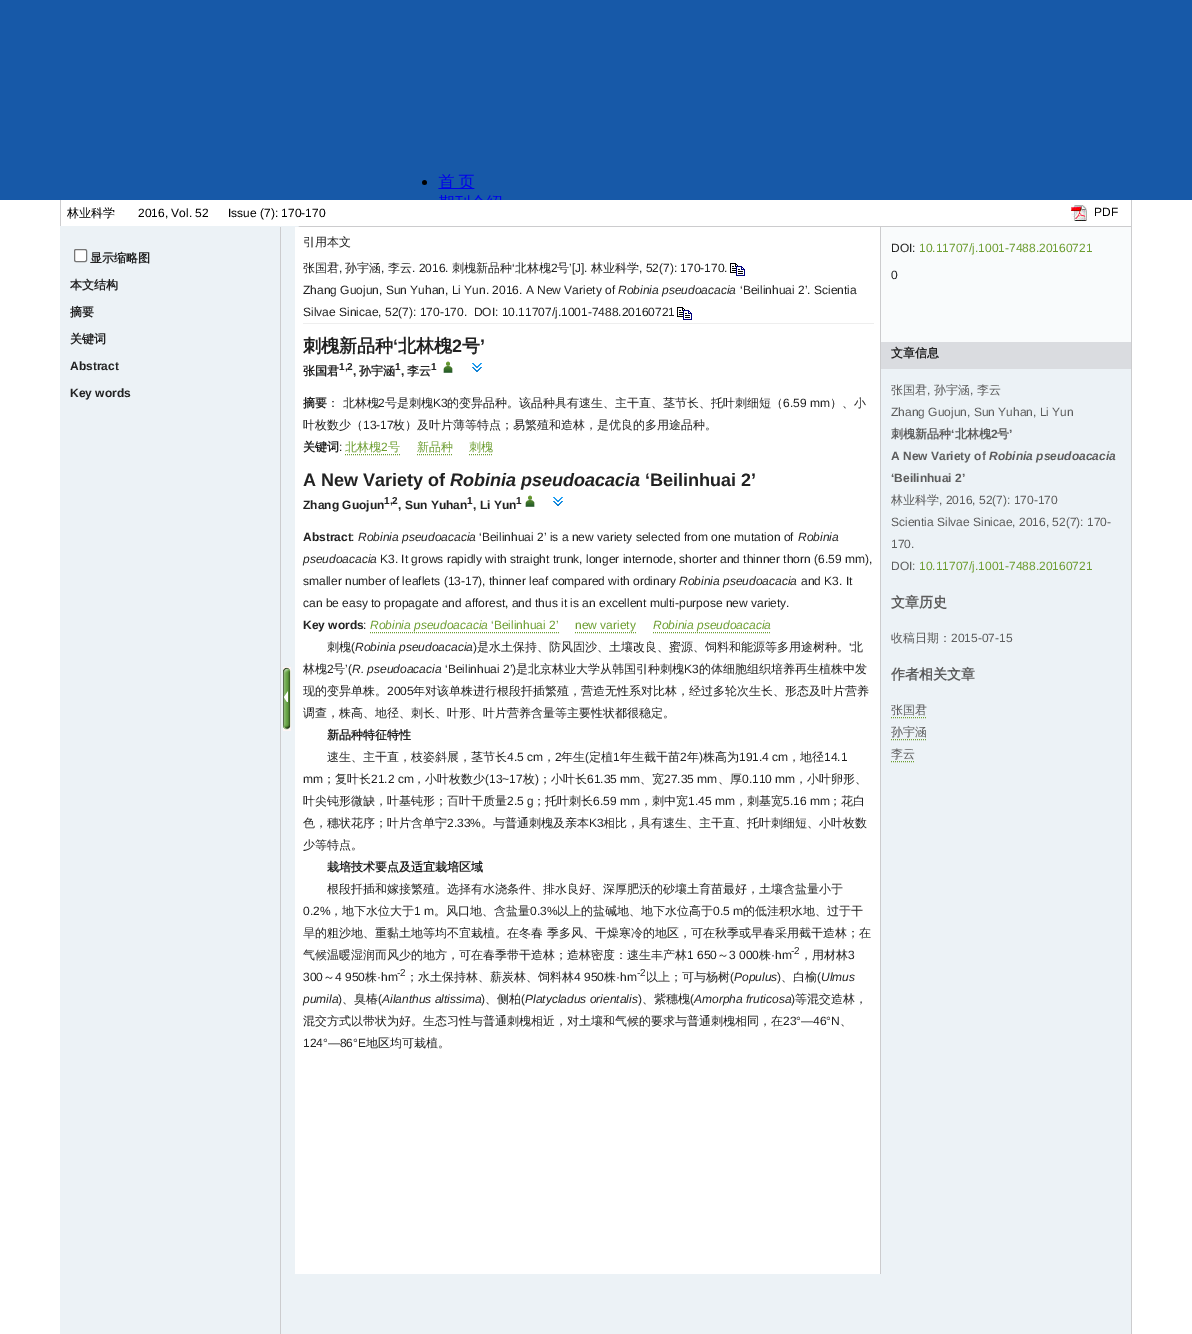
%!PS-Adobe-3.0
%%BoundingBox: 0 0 1192 1334
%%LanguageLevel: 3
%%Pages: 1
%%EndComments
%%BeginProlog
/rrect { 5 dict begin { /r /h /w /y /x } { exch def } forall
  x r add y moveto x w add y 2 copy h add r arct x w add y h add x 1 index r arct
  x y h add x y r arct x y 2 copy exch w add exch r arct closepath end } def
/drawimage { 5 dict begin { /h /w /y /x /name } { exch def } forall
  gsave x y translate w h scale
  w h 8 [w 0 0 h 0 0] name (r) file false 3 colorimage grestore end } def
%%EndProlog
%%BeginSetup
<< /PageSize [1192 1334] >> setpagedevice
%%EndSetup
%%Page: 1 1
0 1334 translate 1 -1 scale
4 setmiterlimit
1 setgray
0 0 1192 1334 rectfill
(images/1.raw) 0 0 1192 200 drawimage
0.8 0.8 0.808 setrgbcolor
60 200 1 27 rectfill
1131 200 1 1134 rectfill
(images/2.raw) 1071 205 16 16 drawimage
297 226 835 1 rectfill
0.925 0.949 0.965 setrgbcolor
60 226 240 1108 3 rrect fill
60 226 2 1108 rectfill
1 setgray
74.5 249.5 12 12 1.5 rrect gsave fill grestore
0.463 setgray
stroke
0.925 0.949 0.965 setrgbcolor
298 227 833 1107 rectfill
0.8 0.8 0.808 setrgbcolor
280 227 1 1107 rectfill
(images/3.raw) 283 667 8 64 drawimage
1 setgray
295 227 585 1047 rectfill
0.8 0.8 0.808 setrgbcolor
880 227 1 1047 rectfill
(images/4.raw) 730 263 15 13 drawimage
(images/4.raw) 677 307 15 13 drawimage
0.933 setgray
303 323 571 1 rectfill
(images/5.raw) 443 361 10 12 drawimage
(images/6.raw) 472 363 10 9 drawimage
0.424 0.616 0.188 setrgbcolor
[1 1] 0 setdash
newpath 345 454.5 moveto 400 454.5 lineto stroke
newpath 417 454.5 moveto 453 454.5 lineto stroke
newpath 469 454.5 moveto 493 454.5 lineto stroke
(images/5.raw) 525 495 10 12 drawimage
(images/6.raw) 553 497 10 9 drawimage
newpath 370 632.5 moveto 488 632.5 lineto stroke
newpath 488 632.5 moveto 559 632.5 lineto stroke
newpath 575 632.5 moveto 636 632.5 lineto stroke
newpath 653 632.5 moveto 771 632.5 lineto stroke
0.976 0.984 0.988 setrgbcolor
881 227 250 115 rectfill
0.855 0.863 0.878 setrgbcolor
881 342 250 27 rectfill
0.424 0.616 0.188 setrgbcolor
newpath 891 717.5 moveto 927 717.5 lineto stroke
newpath 891 739.5 moveto 927 739.5 lineto stroke
newpath 891 761.5 moveto 915 761.5 lineto stroke
/WenQuanYiZenHei-Medium [12 0 0 -12 0 0] selectfont
0 setgray
67 217 moveto (林业科学) show
/LiberationSans-Regular [12 0 0 -12 0 0] selectfont
138 217 moveto (2016, Vol. 52) show
228 217 moveto (Issue \(7\): 170-170) show
1094 216 moveto (PDF) show
/WenQuanYiZenHei-Bold [12 0 0 -12 0 0] selectfont
0.133 setgray
90 262 moveto (显示缩略图) show
70 289 moveto (本文结构) show
70 316 moveto (摘要) show
70 343 moveto (关键词) show
/LiberationSans-Bold [12 0 0 -12 0 0] selectfont
70 370 moveto (Abstract) show
70 397 moveto (Key words) show
/WenQuanYiZenHei-Medium [12 0 0 -12 0 0] selectfont
303 246 moveto (引用本文) show
303 272 moveto (张国君) show
/LiberationSans-Regular [12 0 0 -12 0 0] selectfont
339 272 moveto (,) show
/WenQuanYiZenHei-Medium [12 0 0 -12 0 0] selectfont
345 272 moveto (孙宇涵) show
/LiberationSans-Regular [12 0 0 -12 0 0] selectfont
381 272 moveto (,) show
/WenQuanYiZenHei-Medium [12 0 0 -12 0 0] selectfont
388 272 moveto (李云) show
/LiberationSans-Regular [12 0 0 -12 0 0] selectfont
412 272 moveto (. 2016.) show
/WenQuanYiZenHei-Medium [12 0 0 -12 0 0] selectfont
452 272 moveto (刺槐新品种) show
/LiberationSans-Regular [12 0 0 -12 0 0] selectfont
512 272 moveto (‘) show
/WenQuanYiZenHei-Medium [12 0 0 -12 0 0] selectfont
515 272 moveto (北林槐) show
/LiberationSans-Regular [12 0 0 -12 0 0] selectfont
551 272 moveto (2) show
/WenQuanYiZenHei-Medium [12 0 0 -12 0 0] selectfont
557 272 moveto (号) show
/LiberationSans-Regular [12 0 0 -12 0 0] selectfont
569 272 moveto (’[J].) show
/WenQuanYiZenHei-Medium [12 0 0 -12 0 0] selectfont
591 272 moveto (林业科学) show
/LiberationSans-Regular [12 0 0 -12 0 0] selectfont
639 272 moveto (, 52\(7\): 170-170.) show
303 294 moveto (Zhang Guojun, Sun Yuhan, Li Yun. 2016. A New Variety of) show
/LiberationSans-Italic [12 0 0 -12 0 0] selectfont
618 294 moveto (Robinia pseudoacacia) show
/LiberationSans-Regular [12 0 0 -12 0 0] selectfont
740 294 moveto (‘Beilinhuai 2’. Scientia) show
303 316 moveto (Silvae Sinicae, 52\(7\): 170-170.  DOI: 10.11707/j.1001-7488.20160721) show
/WenQuanYiZenHei-Bold [18 0 0 -18 0 0] selectfont
303 352 moveto (刺槐新品种) show
/LiberationSans-Bold [18 0 0 -18 0 0] selectfont
393 352 moveto (‘) show
/WenQuanYiZenHei-Bold [18 0 0 -18 0 0] selectfont
398 352 moveto (北林槐) show
/LiberationSans-Bold [18 0 0 -18 0 0] selectfont
452 352 moveto (2) show
/WenQuanYiZenHei-Bold [18 0 0 -18 0 0] selectfont
462 352 moveto (号) show
/LiberationSans-Bold [18 0 0 -18 0 0] selectfont
480 352 moveto (’) show
/WenQuanYiZenHei-Bold [12 0 0 -12 0 0] selectfont
303 375 moveto (张国君) show
/LiberationSans-Bold [10 0 0 -10 0 0] selectfont
339 370 moveto (1,2) show
/LiberationSans-Bold [12 0 0 -12 0 0] selectfont
353 375 moveto (,) show
/WenQuanYiZenHei-Bold [12 0 0 -12 0 0] selectfont
359 375 moveto (孙宇涵) show
/LiberationSans-Bold [10 0 0 -10 0 0] selectfont
395 370 moveto (1) show
/LiberationSans-Bold [12 0 0 -12 0 0] selectfont
401 375 moveto (,) show
/WenQuanYiZenHei-Bold [12 0 0 -12 0 0] selectfont
407 375 moveto (李云) show
/LiberationSans-Bold [10 0 0 -10 0 0] selectfont
431 370 moveto (1) show
/WenQuanYiZenHei-Bold [12 0 0 -12 0 0] selectfont
303 407 moveto (摘要) show
/WenQuanYiZenHei-Medium [12 0 0 -12 0 0] selectfont
327 407 moveto (： 北林槐) show
/LiberationSans-Regular [12 0 0 -12 0 0] selectfont
378 407 moveto (2) show
/WenQuanYiZenHei-Medium [12 0 0 -12 0 0] selectfont
385 407 moveto (号是刺槐) show
/LiberationSans-Regular [12 0 0 -12 0 0] selectfont
433 407 moveto (K3) show
/WenQuanYiZenHei-Medium [12 0 0 -12 0 0] selectfont
447 407 moveto (的变异品种。该品种具有速生、主干直、茎节长、托叶刺细短（) show
/LiberationSans-Regular [12 0 0 -12 0 0] selectfont
783 407 moveto (6.59 mm) show
/WenQuanYiZenHei-Medium [12 0 0 -12 0 0] selectfont
830 407 moveto (）、小) show
303 429 moveto (叶枚数少（) show
/LiberationSans-Regular [12 0 0 -12 0 0] selectfont
363 429 moveto (13-17) show
/WenQuanYiZenHei-Medium [12 0 0 -12 0 0] selectfont
393 429 moveto (枚）及叶片薄等特点；易繁殖和造林，是优良的多用途品种。) show
/WenQuanYiZenHei-Bold [12 0 0 -12 0 0] selectfont
303 451 moveto (关键词) show
/LiberationSans-Regular [12 0 0 -12 0 0] selectfont
339 451 moveto (:) show
/WenQuanYiZenHei-Medium [12 0 0 -12 0 0] selectfont
0.424 0.616 0.188 setrgbcolor
345 451 moveto (北林槐) show
/LiberationSans-Regular [12 0 0 -12 0 0] selectfont
381 451 moveto (2) show
/WenQuanYiZenHei-Medium [12 0 0 -12 0 0] selectfont
388 451 moveto (号) show
417 451 moveto (新品种) show
469 451 moveto (刺槐) show
/LiberationSans-Bold [18 0 0 -18 0 0] selectfont
0.133 setgray
303 486 moveto (A New Variety of) show
/LiberationSans-BoldItalic [18 0 0 -18 0 0] selectfont
450 486 moveto (Robinia pseudoacacia) show
/LiberationSans-Bold [18 0 0 -18 0 0] selectfont
645 486 moveto (‘Beilinhuai 2’) show
/LiberationSans-Bold [12 0 0 -12 0 0] selectfont
303 509 moveto (Zhang Guojun) show
/LiberationSans-Bold [10 0 0 -10 0 0] selectfont
384 504 moveto (1,2) show
/LiberationSans-Bold [12 0 0 -12 0 0] selectfont
398 509 moveto (, Sun Yuhan) show
/LiberationSans-Bold [10 0 0 -10 0 0] selectfont
467 504 moveto (1) show
/LiberationSans-Bold [12 0 0 -12 0 0] selectfont
473 509 moveto (, Li Yun) show
/LiberationSans-Bold [10 0 0 -10 0 0] selectfont
516 504 moveto (1) show
/LiberationSans-Bold [12 0 0 -12 0 0] selectfont
303 541 moveto (Abstract) show
/LiberationSans-Regular [12 0 0 -12 0 0] selectfont
351 541 moveto (:) show
/LiberationSans-Italic [12 0 0 -12 0 0] selectfont
358 541 moveto (Robinia pseudoacacia) show
/LiberationSans-Regular [12 0 0 -12 0 0] selectfont
479 541 moveto (‘Beilinhuai 2’ is a new variety selected from one mutation of) show
/LiberationSans-Italic [12 0 0 -12 0 0] selectfont
798 541 moveto (Robinia) show
303 563 moveto (pseudoacacia) show
/LiberationSans-Regular [12 0 0 -12 0 0] selectfont
380 563 moveto (K3. It grows rapidly with straight trunk, longer internode, shorter and thinner thorn \(6.59 mm\),) show
303 585 moveto (smaller number of leaflets \(13-17\), thinner leaf compared with ordinary) show
/LiberationSans-Italic [12 0 0 -12 0 0] selectfont
679 585 moveto (Robinia pseudoacacia) show
/LiberationSans-Regular [12 0 0 -12 0 0] selectfont
801 585 moveto (and K3. It) show
303 607 moveto (can be easy to propagate and afforest, and thus it is an excellent multi-purpose new variety.) show
/LiberationSans-Bold [12 0 0 -12 0 0] selectfont
303 629 moveto (Key words) show
/LiberationSans-Regular [12 0 0 -12 0 0] selectfont
363 629 moveto (:) show
/LiberationSans-Italic [12 0 0 -12 0 0] selectfont
0.424 0.616 0.188 setrgbcolor
370 629 moveto (Robinia pseudoacacia) show
/LiberationSans-Regular [12 0 0 -12 0 0] selectfont
491 629 moveto (‘Beilinhuai 2’) show
575 629 moveto (new variety) show
/LiberationSans-Italic [12 0 0 -12 0 0] selectfont
653 629 moveto (Robinia pseudoacacia) show
/WenQuanYiZenHei-Medium [12 0 0 -12 0 0] selectfont
0.133 setgray
327 651 moveto (刺槐) show
/LiberationSans-Regular [12 0 0 -12 0 0] selectfont
351 651 moveto (\() show
/LiberationSans-Italic [12 0 0 -12 0 0] selectfont
355 651 moveto (Robinia pseudoacacia) show
/LiberationSans-Regular [12 0 0 -12 0 0] selectfont
473 651 moveto (\)) show
/WenQuanYiZenHei-Medium [12 0 0 -12 0 0] selectfont
477 651 moveto (是水土保持、防风固沙、土壤改良、蜜源、饲料和能源等多用途树种。) show
/LiberationSans-Regular [12 0 0 -12 0 0] selectfont
849 651 moveto (‘) show
/WenQuanYiZenHei-Medium [12 0 0 -12 0 0] selectfont
851 651 moveto (北) show
303 673 moveto (林槐) show
/LiberationSans-Regular [12 0 0 -12 0 0] selectfont
327 673 moveto (2) show
/WenQuanYiZenHei-Medium [12 0 0 -12 0 0] selectfont
333 673 moveto (号) show
/LiberationSans-Regular [12 0 0 -12 0 0] selectfont
345 673 moveto (’\() show
/LiberationSans-Italic [12 0 0 -12 0 0] selectfont
352 673 moveto (R. pseudoacacia) show
/LiberationSans-Regular [12 0 0 -12 0 0] selectfont
445 673 moveto (‘Beilinhuai 2’\)) show
/WenQuanYiZenHei-Medium [12 0 0 -12 0 0] selectfont
516 673 moveto (是北京林业大学从韩国引种刺槐) show
/LiberationSans-Regular [12 0 0 -12 0 0] selectfont
684 673 moveto (K3) show
/WenQuanYiZenHei-Medium [12 0 0 -12 0 0] selectfont
699 673 moveto (的体细胞组织培养再生植株中发) show
303 695 moveto (现的变异单株。) show
/LiberationSans-Regular [12 0 0 -12 0 0] selectfont
387 695 moveto (2005) show
/WenQuanYiZenHei-Medium [12 0 0 -12 0 0] selectfont
413 695 moveto (年对该单株进行根段扦插繁殖，营造无性系对比林，经过多轮次生长、形态及叶片营养) show
303 717 moveto (调查，株高、地径、刺长、叶形、叶片营养含量等主要性状都很稳定。) show
/WenQuanYiZenHei-Bold [12 0 0 -12 0 0] selectfont
327 739 moveto (新品种特征特性) show
/WenQuanYiZenHei-Medium [12 0 0 -12 0 0] selectfont
327 761 moveto (速生、主干直，枝姿斜展，茎节长) show
/LiberationSans-Regular [12 0 0 -12 0 0] selectfont
507 761 moveto (4.5 cm) show
/WenQuanYiZenHei-Medium [12 0 0 -12 0 0] selectfont
543 761 moveto (，) show
/LiberationSans-Regular [12 0 0 -12 0 0] selectfont
555 761 moveto (2) show
/WenQuanYiZenHei-Medium [12 0 0 -12 0 0] selectfont
561 761 moveto (年生) show
/LiberationSans-Regular [12 0 0 -12 0 0] selectfont
585 761 moveto (\() show
/WenQuanYiZenHei-Medium [12 0 0 -12 0 0] selectfont
589 761 moveto (定植) show
/LiberationSans-Regular [12 0 0 -12 0 0] selectfont
613 761 moveto (1) show
/WenQuanYiZenHei-Medium [12 0 0 -12 0 0] selectfont
620 761 moveto (年生截干苗) show
/LiberationSans-Regular [12 0 0 -12 0 0] selectfont
680 761 moveto (2) show
/WenQuanYiZenHei-Medium [12 0 0 -12 0 0] selectfont
687 761 moveto (年) show
/LiberationSans-Regular [12 0 0 -12 0 0] selectfont
699 761 moveto (\)) show
/WenQuanYiZenHei-Medium [12 0 0 -12 0 0] selectfont
703 761 moveto (株高为) show
/LiberationSans-Regular [12 0 0 -12 0 0] selectfont
739 761 moveto (191.4 cm) show
/WenQuanYiZenHei-Medium [12 0 0 -12 0 0] selectfont
788 761 moveto (，地径) show
/LiberationSans-Regular [12 0 0 -12 0 0] selectfont
824 761 moveto (14.1) show
303 783 moveto (mm) show
/WenQuanYiZenHei-Medium [12 0 0 -12 0 0] selectfont
323 783 moveto (；复叶长) show
/LiberationSans-Regular [12 0 0 -12 0 0] selectfont
371 783 moveto (21.2 cm) show
/WenQuanYiZenHei-Medium [12 0 0 -12 0 0] selectfont
413 783 moveto (，小叶枚数少) show
/LiberationSans-Regular [12 0 0 -12 0 0] selectfont
485 783 moveto (\(13~17) show
/WenQuanYiZenHei-Medium [12 0 0 -12 0 0] selectfont
523 783 moveto (枚) show
/LiberationSans-Regular [12 0 0 -12 0 0] selectfont
535 783 moveto (\)) show
/WenQuanYiZenHei-Medium [12 0 0 -12 0 0] selectfont
539 783 moveto (；小叶长) show
/LiberationSans-Regular [12 0 0 -12 0 0] selectfont
587 783 moveto (61.35 mm) show
/WenQuanYiZenHei-Medium [12 0 0 -12 0 0] selectfont
640 783 moveto (、宽) show
/LiberationSans-Regular [12 0 0 -12 0 0] selectfont
664 783 moveto (27.35 mm) show
/WenQuanYiZenHei-Medium [12 0 0 -12 0 0] selectfont
718 783 moveto (、厚) show
/LiberationSans-Regular [12 0 0 -12 0 0] selectfont
742 783 moveto (0.110 mm) show
/WenQuanYiZenHei-Medium [12 0 0 -12 0 0] selectfont
795 783 moveto (，小叶卵形、) show
303 805 moveto (叶尖钝形微缺，叶基钝形；百叶干质量) show
/LiberationSans-Regular [12 0 0 -12 0 0] selectfont
507 805 moveto (2.5 g) show
/WenQuanYiZenHei-Medium [12 0 0 -12 0 0] selectfont
533 805 moveto (；托叶刺长) show
/LiberationSans-Regular [12 0 0 -12 0 0] selectfont
593 805 moveto (6.59 mm) show
/WenQuanYiZenHei-Medium [12 0 0 -12 0 0] selectfont
640 805 moveto (，刺中宽) show
/LiberationSans-Regular [12 0 0 -12 0 0] selectfont
688 805 moveto (1.45 mm) show
/WenQuanYiZenHei-Medium [12 0 0 -12 0 0] selectfont
735 805 moveto (，刺基宽) show
/LiberationSans-Regular [12 0 0 -12 0 0] selectfont
783 805 moveto (5.16 mm) show
/WenQuanYiZenHei-Medium [12 0 0 -12 0 0] selectfont
829 805 moveto (；花白) show
303 827 moveto (色，穗状花序；叶片含单宁) show
/LiberationSans-Regular [12 0 0 -12 0 0] selectfont
447 827 moveto (2.33%) show
/WenQuanYiZenHei-Medium [12 0 0 -12 0 0] selectfont
481 827 moveto (。与普通刺槐及亲本) show
/LiberationSans-Regular [12 0 0 -12 0 0] selectfont
589 827 moveto (K3) show
/WenQuanYiZenHei-Medium [12 0 0 -12 0 0] selectfont
603 827 moveto (相比，具有速生、主干直、托叶刺细短、小叶枚数) show
303 849 moveto (少等特点。) show
/WenQuanYiZenHei-Bold [12 0 0 -12 0 0] selectfont
327 871 moveto (栽培技术要点及适宜栽培区域) show
/WenQuanYiZenHei-Medium [12 0 0 -12 0 0] selectfont
327 893 moveto (根段扦插和嫁接繁殖。选择有水浇条件、排水良好、深厚肥沃的砂壤土育苗最好，土壤含盐量小于) show
/LiberationSans-Regular [12 0 0 -12 0 0] selectfont
303 915 moveto (0.2%) show
/WenQuanYiZenHei-Medium [12 0 0 -12 0 0] selectfont
330 915 moveto (，地下水位大于) show
/LiberationSans-Regular [12 0 0 -12 0 0] selectfont
414 915 moveto (1 m) show
/WenQuanYiZenHei-Medium [12 0 0 -12 0 0] selectfont
434 915 moveto (。风口地、含盐量) show
/LiberationSans-Regular [12 0 0 -12 0 0] selectfont
530 915 moveto (0.3%) show
/WenQuanYiZenHei-Medium [12 0 0 -12 0 0] selectfont
557 915 moveto (以上的盐碱地、地下水位高于) show
/LiberationSans-Regular [12 0 0 -12 0 0] selectfont
713 915 moveto (0.5 m) show
/WenQuanYiZenHei-Medium [12 0 0 -12 0 0] selectfont
743 915 moveto (的低洼积水地、过于干) show
303 937 moveto (旱的粗沙地、重黏土地等均不宜栽植。在冬春 季多风、干燥寒冷的地区，可在秋季或早春采用截干造林；在) show
303 959 moveto (气候温暖湿润而风少的地方，可在春季带干造林；造林密度：速生丰产林) show
/LiberationSans-Regular [12 0 0 -12 0 0] selectfont
687 959 moveto (1 650) show
/WenQuanYiZenHei-Medium [12 0 0 -12 0 0] selectfont
717 959 moveto (～) show
/LiberationSans-Regular [12 0 0 -12 0 0] selectfont
729 959 moveto (3 000) show
/WenQuanYiZenHei-Medium [12 0 0 -12 0 0] selectfont
759 959 moveto (株) show
/LiberationSans-Regular [12 0 0 -12 0 0] selectfont
771 959 moveto (·hm) show
/LiberationSans-Regular [10 0 0 -10 0 0] selectfont
791 954 moveto (-2) show
/WenQuanYiZenHei-Medium [12 0 0 -12 0 0] selectfont
800 959 moveto (，用材林) show
/LiberationSans-Regular [12 0 0 -12 0 0] selectfont
848 959 moveto (3) show
303 981 moveto (300) show
/WenQuanYiZenHei-Medium [12 0 0 -12 0 0] selectfont
323 981 moveto (～) show
/LiberationSans-Regular [12 0 0 -12 0 0] selectfont
335 981 moveto (4 950) show
/WenQuanYiZenHei-Medium [12 0 0 -12 0 0] selectfont
365 981 moveto (株) show
/LiberationSans-Regular [12 0 0 -12 0 0] selectfont
377 981 moveto (·hm) show
/LiberationSans-Regular [10 0 0 -10 0 0] selectfont
397 976 moveto (-2) show
/WenQuanYiZenHei-Medium [12 0 0 -12 0 0] selectfont
406 981 moveto (；水土保持林、薪炭林、饲料林) show
/LiberationSans-Regular [12 0 0 -12 0 0] selectfont
574 981 moveto (4 950) show
/WenQuanYiZenHei-Medium [12 0 0 -12 0 0] selectfont
604 981 moveto (株) show
/LiberationSans-Regular [12 0 0 -12 0 0] selectfont
616 981 moveto (·hm) show
/LiberationSans-Regular [10 0 0 -10 0 0] selectfont
637 976 moveto (-2) show
/WenQuanYiZenHei-Medium [12 0 0 -12 0 0] selectfont
646 981 moveto (以上；可与杨树) show
/LiberationSans-Regular [12 0 0 -12 0 0] selectfont
730 981 moveto (\() show
/LiberationSans-Italic [12 0 0 -12 0 0] selectfont
734 981 moveto (Populus) show
/LiberationSans-Regular [12 0 0 -12 0 0] selectfont
777 981 moveto (\)) show
/WenQuanYiZenHei-Medium [12 0 0 -12 0 0] selectfont
781 981 moveto (、白榆) show
/LiberationSans-Regular [12 0 0 -12 0 0] selectfont
817 981 moveto (\() show
/LiberationSans-Italic [12 0 0 -12 0 0] selectfont
821 981 moveto (Ulmus) show
303 1003 moveto (pumila) show
/LiberationSans-Regular [12 0 0 -12 0 0] selectfont
338 1003 moveto (\)) show
/WenQuanYiZenHei-Medium [12 0 0 -12 0 0] selectfont
342 1003 moveto (、臭椿) show
/LiberationSans-Regular [12 0 0 -12 0 0] selectfont
378 1003 moveto (\() show
/LiberationSans-Italic [12 0 0 -12 0 0] selectfont
382 1003 moveto (Ailanthus altissima) show
/LiberationSans-Regular [12 0 0 -12 0 0] selectfont
481 1003 moveto (\)) show
/WenQuanYiZenHei-Medium [12 0 0 -12 0 0] selectfont
485 1003 moveto (、侧柏) show
/LiberationSans-Regular [12 0 0 -12 0 0] selectfont
521 1003 moveto (\() show
/LiberationSans-Italic [12 0 0 -12 0 0] selectfont
525 1003 moveto (Platycladus orientalis) show
/LiberationSans-Regular [12 0 0 -12 0 0] selectfont
638 1003 moveto (\)) show
/WenQuanYiZenHei-Medium [12 0 0 -12 0 0] selectfont
642 1003 moveto (、紫穗槐) show
/LiberationSans-Regular [12 0 0 -12 0 0] selectfont
690 1003 moveto (\() show
/LiberationSans-Italic [12 0 0 -12 0 0] selectfont
694 1003 moveto (Amorpha fruticosa) show
/LiberationSans-Regular [12 0 0 -12 0 0] selectfont
791 1003 moveto (\)) show
/WenQuanYiZenHei-Medium [12 0 0 -12 0 0] selectfont
795 1003 moveto (等混交造林，) show
303 1025 moveto (混交方式以带状为好。生态习性与普通刺槐相近，对土壤和气候的要求与普通刺槐相同，在) show
/LiberationSans-Regular [12 0 0 -12 0 0] selectfont
783 1025 moveto (23°—46°N) show
/WenQuanYiZenHei-Medium [12 0 0 -12 0 0] selectfont
840 1025 moveto (、) show
/LiberationSans-Regular [12 0 0 -12 0 0] selectfont
303 1047 moveto (124°—86°E) show
/WenQuanYiZenHei-Medium [12 0 0 -12 0 0] selectfont
366 1047 moveto (地区均可栽植。) show
/LiberationSans-Regular [12 0 0 -12 0 0] selectfont
891 252 moveto (DOI:) show
0.424 0.616 0.188 setrgbcolor
919 252 moveto (10.11707/j.1001-7488.20160721) show
0.133 setgray
891 279 moveto (0) show
/WenQuanYiZenHei-Bold [12 0 0 -12 0 0] selectfont
891 357 moveto (文章信息) show
/WenQuanYiZenHei-Medium [12 0 0 -12 0 0] selectfont
0.361 setgray
891 394 moveto (张国君) show
/LiberationSans-Regular [12 0 0 -12 0 0] selectfont
927 394 moveto (,) show
/WenQuanYiZenHei-Medium [12 0 0 -12 0 0] selectfont
934 394 moveto (孙宇涵) show
/LiberationSans-Regular [12 0 0 -12 0 0] selectfont
970 394 moveto (,) show
/WenQuanYiZenHei-Medium [12 0 0 -12 0 0] selectfont
977 394 moveto (李云) show
/LiberationSans-Regular [12 0 0 -12 0 0] selectfont
891 416 moveto (Zhang Guojun, Sun Yuhan, Li Yun) show
/WenQuanYiZenHei-Bold [12 0 0 -12 0 0] selectfont
891 438 moveto (刺槐新品种 北林槐) show
997 438 moveto (号) show
/LiberationSans-Bold [12 0 0 -12 0 0] selectfont
951 438 moveto (‘) show
991 438 moveto (2) show
1009 438 moveto (’) show
891 460 moveto (A New Variety of) show
/LiberationSans-BoldItalic [12 0 0 -12 0 0] selectfont
989 460 moveto (Robinia pseudoacacia) show
/LiberationSans-Bold [12 0 0 -12 0 0] selectfont
891 482 moveto (‘Beilinhuai 2’) show
/WenQuanYiZenHei-Medium [12 0 0 -12 0 0] selectfont
891 504 moveto (林业科学) show
/LiberationSans-Regular [12 0 0 -12 0 0] selectfont
939 504 moveto (, 2016, 52\(7\): 170-170) show
891 526 moveto (Scientia Silvae Sinicae, 2016, 52\(7\): 170-) show
891 548 moveto (170.) show
891 570 moveto (DOI:) show
0.424 0.616 0.188 setrgbcolor
919 570 moveto (10.11707/j.1001-7488.20160721) show
/WenQuanYiZenHei-Bold [14 0 0 -14 0 0] selectfont
0.361 setgray
891 607 moveto (文章历史) show
/WenQuanYiZenHei-Medium [12 0 0 -12 0 0] selectfont
891 642 moveto (收稿日期：) show
/LiberationSans-Regular [12 0 0 -12 0 0] selectfont
951 642 moveto (2015-07-15) show
/WenQuanYiZenHei-Bold [14 0 0 -14 0 0] selectfont
891 679 moveto (作者相关文章) show
/WenQuanYiZenHei-Medium [12 0 0 -12 0 0] selectfont
891 714 moveto (张国君) show
891 736 moveto (孙宇涵) show
891 758 moveto (李云) show
showpage
%%EOF
